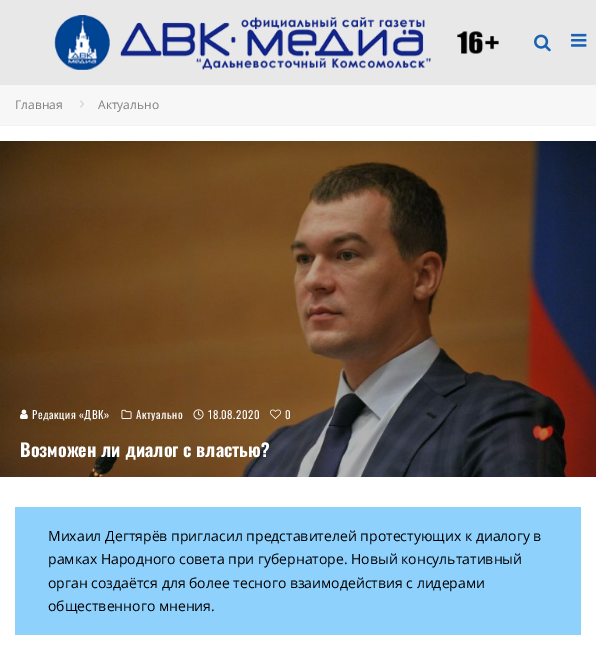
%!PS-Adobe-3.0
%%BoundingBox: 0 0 596 661
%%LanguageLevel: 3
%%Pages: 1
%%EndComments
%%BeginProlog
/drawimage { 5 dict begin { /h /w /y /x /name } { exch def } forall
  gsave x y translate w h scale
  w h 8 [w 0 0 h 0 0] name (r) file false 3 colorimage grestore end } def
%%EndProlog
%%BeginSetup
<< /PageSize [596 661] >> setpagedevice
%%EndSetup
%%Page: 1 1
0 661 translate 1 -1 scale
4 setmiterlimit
1 setgray
0 0 596 661 rectfill
0.91 setgray
0 0 596 85 rectfill
(images/1.raw) 54 15 445 55 drawimage
(images/2.raw) 534 34 17 18 drawimage
(images/3.raw) 571 33 16 14 drawimage
0.969 setgray
0 85 596 40 rectfill
0.953 setgray
0 125 596 1 rectfill
(images/4.raw) 80 100 4 8 drawimage
(images/5.raw) 0 141 596 336 drawimage
(images/6.raw) 20 409 8 10 drawimage
(images/7.raw) 121 409 11 10 drawimage
(images/8.raw) 193 409 11 11 drawimage
(images/9.raw) 270 409 11 10 drawimage
0.557 0.82 0.988 setrgbcolor
15 507 566 128 rectfill
/OpenSans-Regular [12 0 0 -12 0 0] selectfont
0.502 setgray
15 109 moveto (Главная) show
98 109 moveto (Актуально) show
/Oswald-Regular [11 0 0 -11 0 0] selectfont
1 setgray
32 419 moveto 0.5 0 (Редакция «ДВК») ashow
136 419 moveto 0.5 0 (Актуально) ashow
208 419 moveto 0.5 0 (18.08.2020) ashow
285 419 moveto 0.5 0 (0) ashow
/Oswald-Bold [18 0 0 -18 0 0] selectfont
20 457 moveto (Возможен ли диалог с властью?) show
/OpenSans-Regular [14 0 0 -14 0 0] selectfont
0 setgray
48 541 moveto (Михаил Дегтярёв пригласил представителей протестующих к диалогу в) show
48 564 moveto (рамках Народного совета при губернаторе. Новый консультативный) show
48 588 moveto (орган создаётся для более тесного взаимодействия с лидерами) show
48 611 moveto (общественного мнения.) show
showpage
%%EOF
